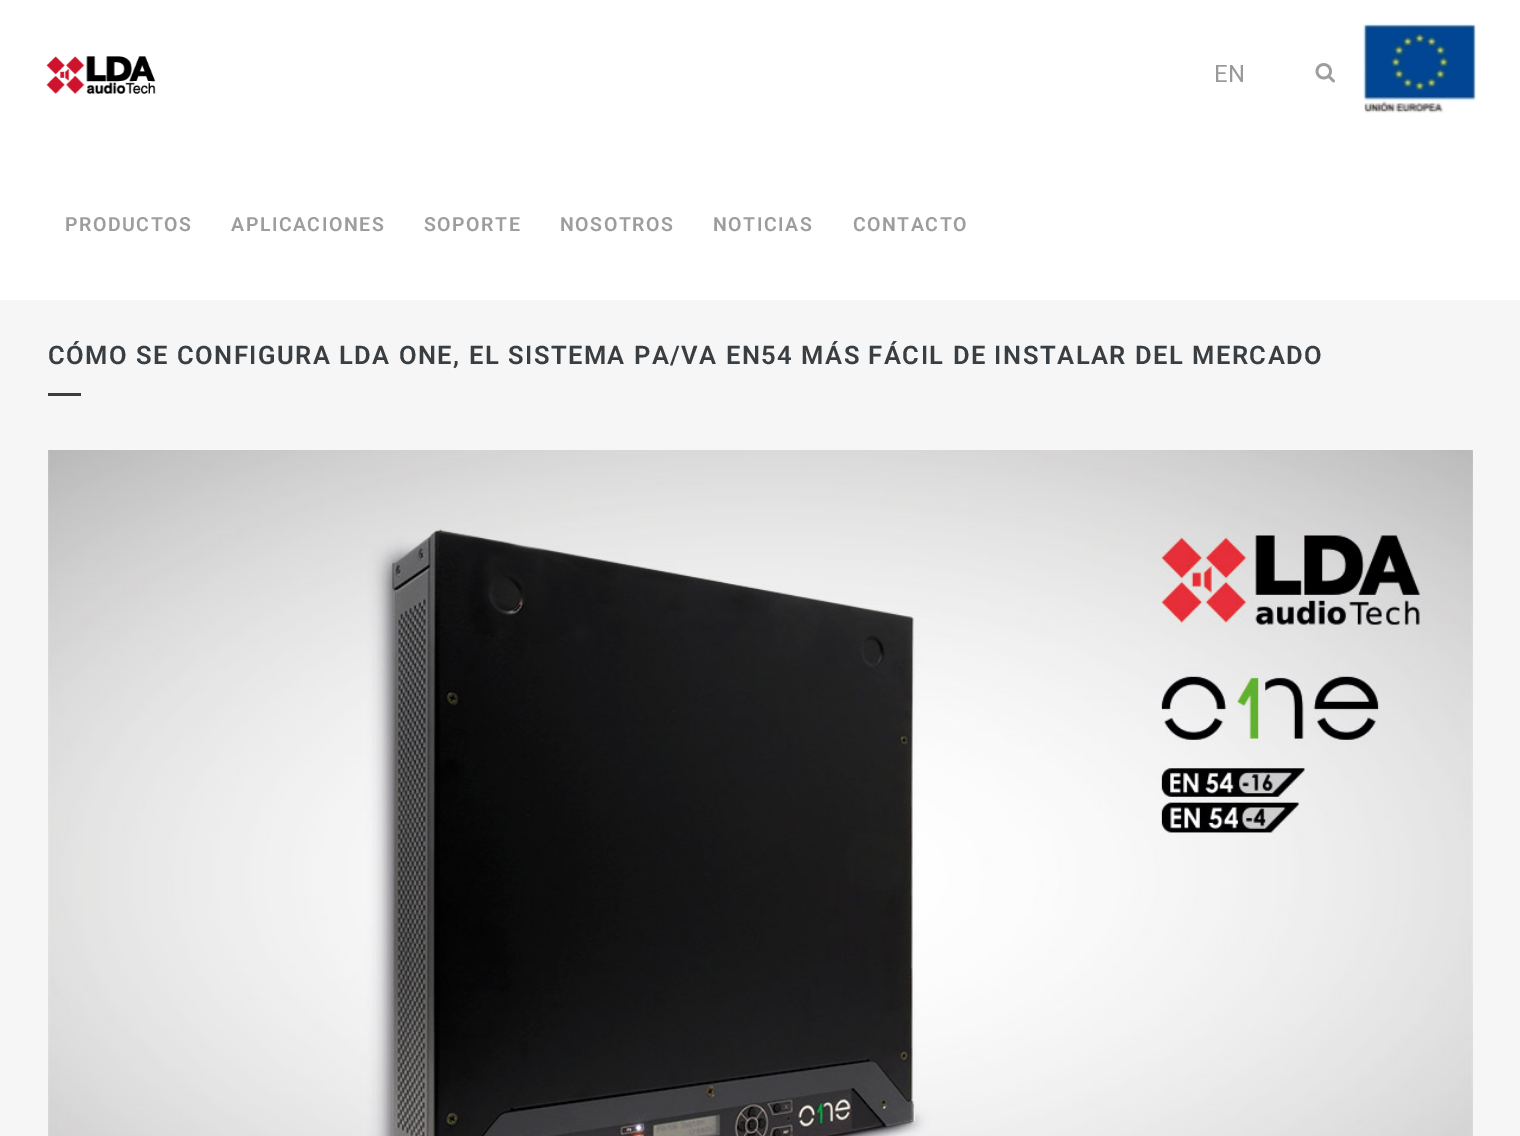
%!PS-Adobe-3.0
%%BoundingBox: 0 0 1520 1136
%%LanguageLevel: 3
%%Pages: 1
%%EndComments
%%BeginProlog
/drawimage { 5 dict begin { /h /w /y /x /name } { exch def } forall
  gsave x y translate w h scale
  w h 8 [w 0 0 h 0 0] name (r) file false 3 colorimage grestore end } def
%%EndProlog
%%BeginSetup
<< /PageSize [1520 1136] >> setpagedevice
%%EndSetup
%%Page: 1 1
0 1136 translate 1 -1 scale
4 setmiterlimit
0.965 setgray
0 0 1520 1136 rectfill
1 setgray
0 0 1520 300 rectfill
(images/1.raw) 46 56 110 38 drawimage
(images/2.raw) 1315 63 20 20 drawimage
(images/3.raw) 1363 24 113 89 drawimage
0.22 0.243 0.259 setrgbcolor
48 393 33 3 rectfill
(images/4.raw) 48 450 1425 686 drawimage
/Roboto-Regular [24 0 0 -24 0 0] selectfont
0.592 0.6 0.608 setrgbcolor
1214 82 moveto (EN) show
/Roboto-SemiBold [19.5 0 0 -19.5 0 0] selectfont
0.616 setgray
65 231 moveto 1.5 0 (PRODUCTOS) ashow
231 231 moveto 1.5 0 (APLICACIONES) ashow
424 231 moveto 1.5 0 (SOPORTE) ashow
560 231 moveto 1.5 0 (NOSOTROS) ashow
713 231 moveto 1.5 0 (NOTICIAS) ashow
853 231 moveto 1.5 0 (CONTACTO) ashow
/Roboto-SemiBold [25.5 0 0 -25.5 0 0] selectfont
0.22 0.243 0.259 setrgbcolor
48 364 moveto 1.5 0 (CÓMO SE CONFIGURA LDA ONE, EL SISTEMA PA/VA EN54 MÁS FÁCIL DE INSTALAR DEL MERCADO) ashow
showpage
%%EOF
